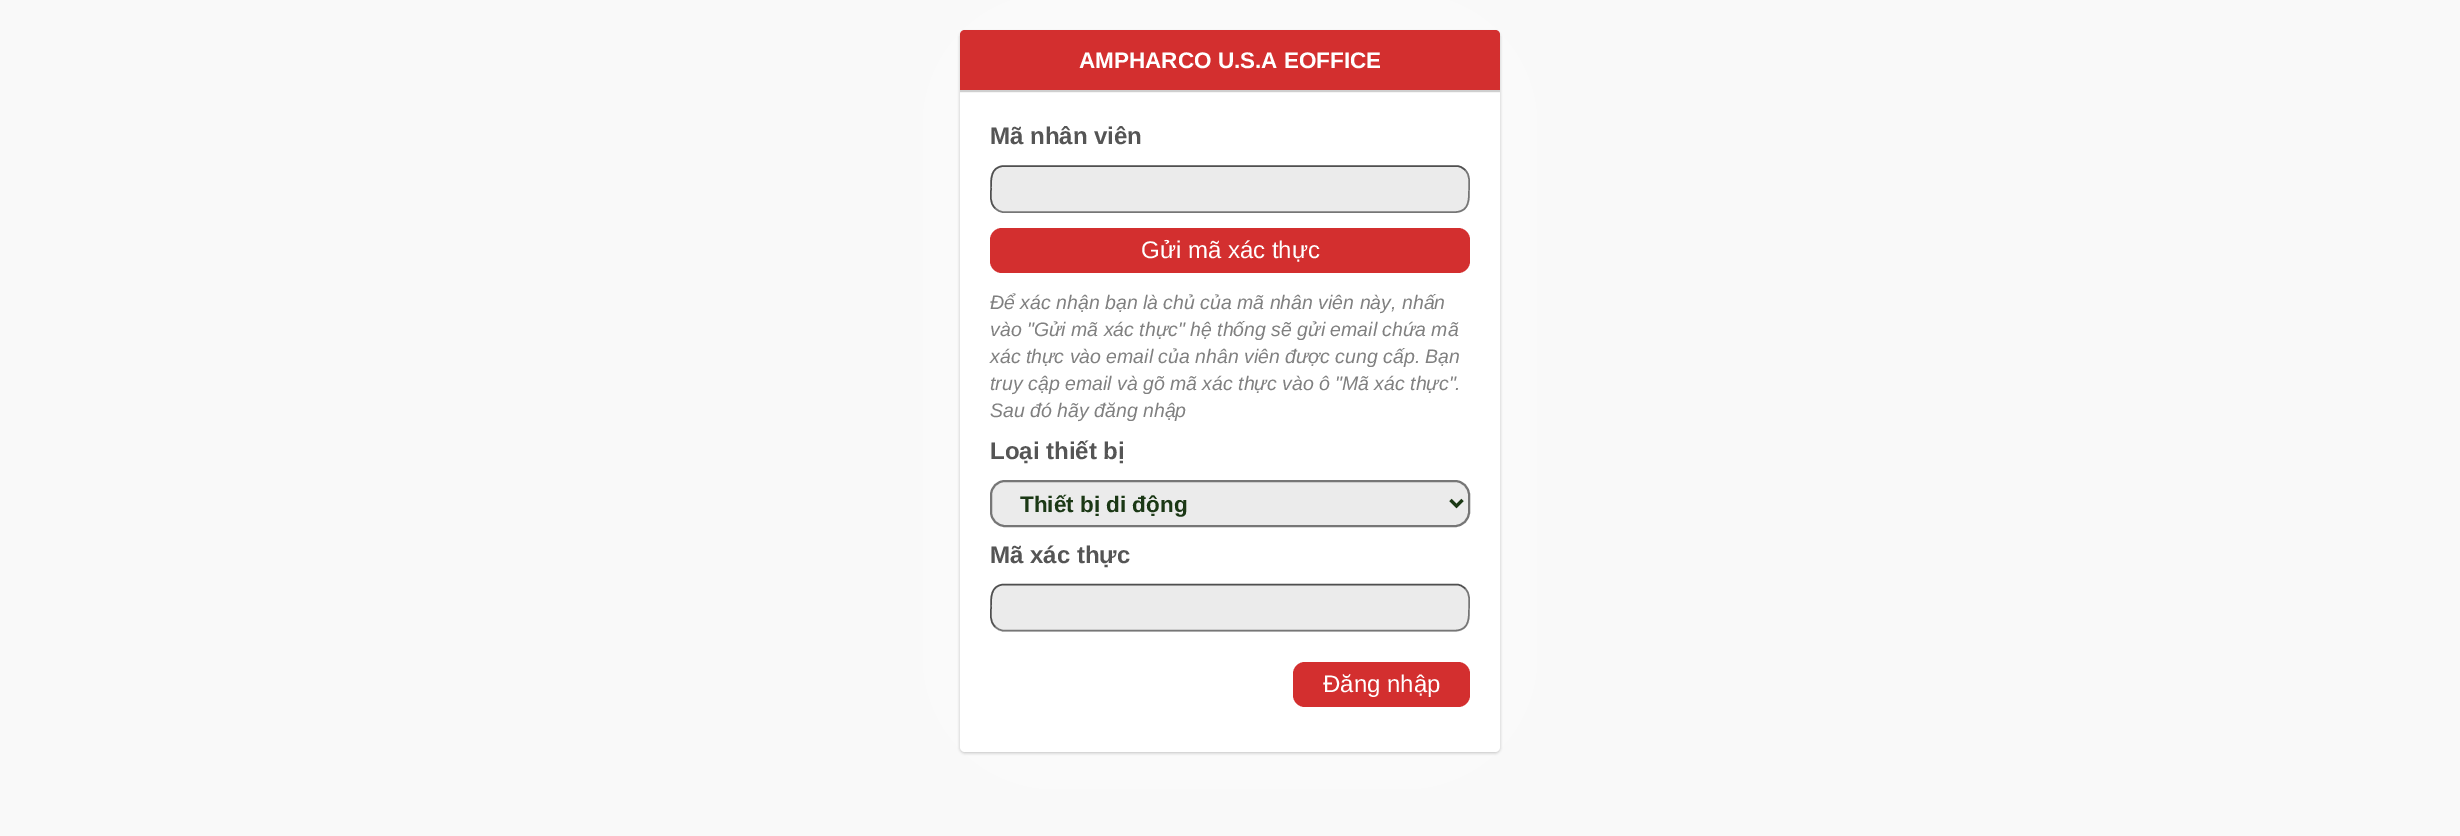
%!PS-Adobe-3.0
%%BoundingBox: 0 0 2460 836
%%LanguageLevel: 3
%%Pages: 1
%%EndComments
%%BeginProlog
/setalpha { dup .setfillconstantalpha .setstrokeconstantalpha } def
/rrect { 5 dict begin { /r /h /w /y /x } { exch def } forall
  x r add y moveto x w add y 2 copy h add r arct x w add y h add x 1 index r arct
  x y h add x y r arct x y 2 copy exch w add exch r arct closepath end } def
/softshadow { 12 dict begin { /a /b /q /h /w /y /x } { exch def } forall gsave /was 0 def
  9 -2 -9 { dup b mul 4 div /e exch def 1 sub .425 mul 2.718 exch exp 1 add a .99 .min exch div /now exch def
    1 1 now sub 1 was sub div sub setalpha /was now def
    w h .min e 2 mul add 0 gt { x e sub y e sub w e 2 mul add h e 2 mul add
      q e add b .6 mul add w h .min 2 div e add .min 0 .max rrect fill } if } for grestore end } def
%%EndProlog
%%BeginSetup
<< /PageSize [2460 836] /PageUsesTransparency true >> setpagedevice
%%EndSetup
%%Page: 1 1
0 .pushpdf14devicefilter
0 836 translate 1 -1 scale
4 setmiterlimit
0.976 setgray
0 0 2460 836 rectfill
0 setgray
960 32 540 721 5 1.5 0.3 softshadow
1 setgray
960 30 540 722 5 150 0.5 softshadow
960 30 540 722 5 rrect fill
0.961 setgray
960 92 540 1 rectfill
0.827 0.184 0.184 setrgbcolor
newpath 965 30 moveto 1495 30 lineto 1498 30 1500 32 1500 35 curveto 1500 92 lineto 960 92 lineto 960 35 lineto 960 32 962 30 965 30 curveto closepath fill
0.812 setgray
960 90 540 2 rectfill
0.922 setgray
990 165 480 48 15 rrect fill
0.463 setgray
1.5 setlinewidth
newpath 1465 170 moveto 1470.5 175 1469 182.5 1469 189 curveto 1469 199 1469.5 211 1456.5 212 curveto 1003.5 212 lineto 1000.5 212 997 210.5 995 208 curveto stroke
0.31 setgray
newpath 995 208 moveto 989.5 203 991 195.5 991 189 curveto 991 179 990.5 167 1003.5 166 curveto 1456.5 166 lineto 1459.5 166 1463 167.5 1465 170 curveto stroke
0.827 0.184 0.184 setrgbcolor
990 228 480 45 12 rrect fill
0.922 setgray
991 481 478 45 14 rrect gsave fill grestore
0.463 setgray
2 setlinewidth
stroke
0.106 0.22 0.082 setrgbcolor
3 setlinewidth
newpath 1450.5 500 moveto 1456.5 506 lineto 1462.5 500 lineto stroke
0.922 setgray
990 584 480 48 15 rrect fill
0.463 setgray
1.5 setlinewidth
newpath 1465 588.5 moveto 1470.5 593.5 1469 601 1469 607.5 curveto 1469 617.5 1469.5 629.5 1456.5 630.5 curveto 1003.5 630.5 lineto 1000.5 630.5 997 629 995 626.5 curveto stroke
0.31 setgray
newpath 995 626.5 moveto 989.5 621.5 991 614 991 607.5 curveto 991 597.5 990.5 585.5 1003.5 584.5 curveto 1456.5 584.5 lineto 1459.5 584.5 1463 586 1465 588.5 curveto stroke
0.827 0.184 0.184 setrgbcolor
1293 662 177 45 12 rrect fill
/LiberationSans-Bold [22.5 0 0 -22.5 0 0] selectfont
1 setgray
1079 68 moveto (AMPHARCO U.S.A EOFFICE) show
/LiberationSans-Bold [24 0 0 -24 0 0] selectfont
0.333 setgray
990 144 moveto (Mã nhân viên) show
/LiberationSans-Regular [24 0 0 -24 0 0] selectfont
1 setgray
1141 258 moveto (Gửi mã xác thực) show
/LiberationSans-Italic [19.5 0 0 -19.5 0 0] selectfont
0.502 setgray
990 309 moveto (Để xác nhận bạn là chủ của mã nhân viên này, nhấn) show
990 336 moveto (vào "Gửi mã xác thực" hệ thống sẽ gửi email chứa mã) show
990 363 moveto (xác thực vào email của nhân viên được cung cấp. Bạn) show
990 390 moveto (truy cập email và gõ mã xác thực vào ô "Mã xác thực".) show
990 417 moveto (Sau đó hãy đăng nhập) show
/LiberationSans-Bold [24 0 0 -24 0 0] selectfont
0.333 setgray
990 459 moveto (Loại thiết bị) show
/LiberationSans-Bold [22.5 0 0 -22.5 0 0] selectfont
0.106 0.22 0.082 setrgbcolor
1020 512 moveto (Thiết bị di động) show
/LiberationSans-Bold [24 0 0 -24 0 0] selectfont
0.333 setgray
990 563 moveto (Mã xác thực) show
/LiberationSans-Regular [24 0 0 -24 0 0] selectfont
1 setgray
1323 692 moveto (Đăng nhập) show
.poppdf14devicefilter showpage
%%EOF
